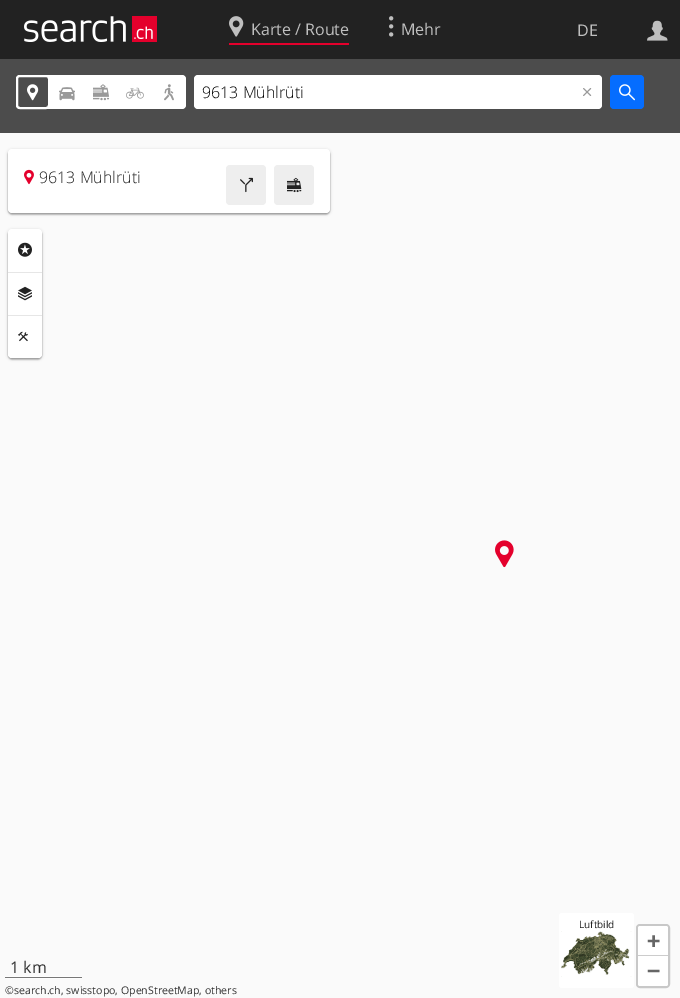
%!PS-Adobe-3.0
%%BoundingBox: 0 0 680 998
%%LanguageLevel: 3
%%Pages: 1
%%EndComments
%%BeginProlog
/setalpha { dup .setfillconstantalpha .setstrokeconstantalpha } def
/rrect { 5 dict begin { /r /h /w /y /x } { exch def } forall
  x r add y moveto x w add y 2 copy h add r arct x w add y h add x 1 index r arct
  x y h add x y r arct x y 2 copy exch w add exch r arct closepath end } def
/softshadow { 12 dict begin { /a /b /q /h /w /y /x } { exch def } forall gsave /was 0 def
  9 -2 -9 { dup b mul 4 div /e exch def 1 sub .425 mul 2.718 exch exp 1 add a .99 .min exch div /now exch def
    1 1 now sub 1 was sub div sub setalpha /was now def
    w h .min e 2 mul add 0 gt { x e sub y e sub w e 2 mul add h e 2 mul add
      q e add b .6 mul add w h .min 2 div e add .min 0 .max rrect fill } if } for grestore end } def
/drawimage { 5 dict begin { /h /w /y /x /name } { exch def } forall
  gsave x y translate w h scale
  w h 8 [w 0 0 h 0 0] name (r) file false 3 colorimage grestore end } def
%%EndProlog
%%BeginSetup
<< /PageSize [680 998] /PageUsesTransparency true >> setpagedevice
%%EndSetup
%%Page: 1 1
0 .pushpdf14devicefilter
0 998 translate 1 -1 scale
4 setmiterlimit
0.98 setgray
0 0 680 998 rectfill
0.133 setgray
0 0 680 59 rectfill
(images/1.raw) 24 16 133 26 drawimage
0.894 0 0.173 setrgbcolor
229 43 120 2 rectfill
(images/2.raw) 229 16 15 21 drawimage
(images/3.raw) 389 16 5 21 drawimage
(images/4.raw) 647 20 21 21 drawimage
0.298 setgray
0 59 680 74 rectfill
1 setgray
16 75 170 34 4 rrect fill
0.298 setgray
17 76 32 32 3 rrect gsave fill grestore
1 setgray
2 setlinewidth
stroke
(images/5.raw) 27 84 12 17 drawimage
(images/6.raw) 59 87 16 14 drawimage
(images/7.raw) 93 84 17 17 drawimage
(images/8.raw) 126 87 18 12 drawimage
(images/9.raw) 164 84 10 17 drawimage
194 75 408 34 4 rrect fill
(images/10.raw) 583 88 9 8 drawimage
0.02 0.427 1 setrgbcolor
610 75 34 34 4 rrect fill
(images/11.raw) 619 84 16 17 drawimage
gsave
newpath 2 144 moveto 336 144 lineto 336 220 lineto 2 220 lineto closepath 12 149 moveto 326 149 lineto 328 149 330 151 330 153 curveto 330 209 lineto 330 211 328 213 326 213 curveto 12 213 lineto 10 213 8 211 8 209 curveto 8 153 lineto 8 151 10 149 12 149 curveto closepath eoclip newpath
0 setgray
8 150 322 64 4 1.5 0.2 softshadow
grestore
0 setgray
8 151 322 64 4 0.5 0.12 softshadow
8 150 322 64 4 0.5 0.14 softshadow
1 setgray
8 149 322 64 4 rrect fill
(images/12.raw) 24 169 10 16 drawimage
0.933 setgray
226 165 40 40 4 rrect fill
(images/13.raw) 240 177 13 16 drawimage
274 165 40 40 4 rrect fill
(images/14.raw) 287 177 15 16 drawimage
gsave
newpath 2 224 moveto 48 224 lineto 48 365 lineto 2 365 lineto closepath 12 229 moveto 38 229 lineto 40 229 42 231 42 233 curveto 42 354 lineto 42 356 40 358 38 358 curveto 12 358 lineto 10 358 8 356 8 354 curveto 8 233 lineto 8 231 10 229 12 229 curveto closepath eoclip newpath
0 setgray
8 230 34 129 4 1.5 0.2 softshadow
grestore
0 setgray
8 231 34 129 4 0.5 0.12 softshadow
8 230 34 129 4 0.5 0.14 softshadow
1 setgray
8 229 34 129 4 rrect fill
0.902 setgray
8 272 34 1 rectfill
(images/15.raw) 18 242 14 15 drawimage
8 315 34 1 rectfill
(images/16.raw) 18 286 14 15 drawimage
gsave
8 229 34 129 3 rrect clip newpath
1 setgray
newpath 8 316 moveto 42 316 lineto 42 354 lineto 42 356 40 358 38 358 curveto 12 358 lineto 10 358 8 356 8 354 curveto closepath fill
grestore
(images/17.raw) 18 331 10 11 drawimage
1 setgray
559 913 75 75 3 rrect fill
(images/18.raw) 561 931 71 46 drawimage
(images/19.raw) 495 540 19 28 drawimage
0.784 setgray
637 925 32 62 3 rrect stroke
1 setgray
newpath 640 926 moveto 666 926 lineto 667 926 668 927 668 928 curveto 668 956 lineto 638 956 lineto 638 928 lineto 638 927 639 926 640 926 curveto closepath fill
0.8 setgray
638 955 30 1 rectfill
1 setgray
newpath 638 956 moveto 668 956 lineto 668 984 lineto 668 985 667 986 666 986 curveto 640 986 lineto 639 986 638 985 638 984 curveto closepath fill
0.992 setgray
5 978 77 1 rectfill
5 976 77 1 rectfill
0.467 setgray
5 977 77 1 rectfill
/OpenSans-Regular [16 0 0 -16 0 0] selectfont
0.749 setgray
251 35 moveto (Karte / Route) show
401 35 moveto (Mehr) show
577 36 moveto (DE) show
/OpenSans-Light [16 0 0 -16 0 0] selectfont
0 setgray
202 98 moveto (9613 Mühlrüti) show
0.133 setgray
39 183 moveto (9613 Mühlrüti) show
/OpenSans-Regular [10 0 0 -10 0 0] selectfont
579 928 moveto (Luftbild) show
/DejaVuSansMono-Bold [22 0 0 -22 0 0] selectfont
0.4 setgray
647 948 moveto (+) show
647 978 moveto (−) show
/OpenSans-Regular [16 0 0 -16 0 0] selectfont
0.2 setgray
10 973 moveto (1 km) show
/OpenSans-Regular [10.6 0 0 -10.6 0 0] selectfont
5 994 moveto (©search.ch, swisstopo, OpenStreetMap, others) show
.poppdf14devicefilter showpage
%%EOF
